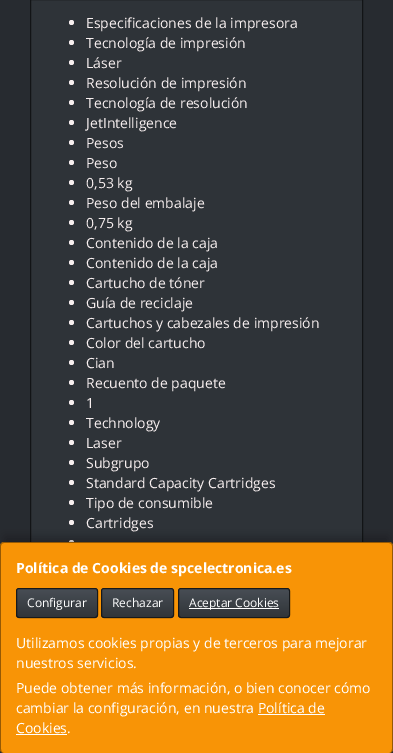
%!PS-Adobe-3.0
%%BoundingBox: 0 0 393 753
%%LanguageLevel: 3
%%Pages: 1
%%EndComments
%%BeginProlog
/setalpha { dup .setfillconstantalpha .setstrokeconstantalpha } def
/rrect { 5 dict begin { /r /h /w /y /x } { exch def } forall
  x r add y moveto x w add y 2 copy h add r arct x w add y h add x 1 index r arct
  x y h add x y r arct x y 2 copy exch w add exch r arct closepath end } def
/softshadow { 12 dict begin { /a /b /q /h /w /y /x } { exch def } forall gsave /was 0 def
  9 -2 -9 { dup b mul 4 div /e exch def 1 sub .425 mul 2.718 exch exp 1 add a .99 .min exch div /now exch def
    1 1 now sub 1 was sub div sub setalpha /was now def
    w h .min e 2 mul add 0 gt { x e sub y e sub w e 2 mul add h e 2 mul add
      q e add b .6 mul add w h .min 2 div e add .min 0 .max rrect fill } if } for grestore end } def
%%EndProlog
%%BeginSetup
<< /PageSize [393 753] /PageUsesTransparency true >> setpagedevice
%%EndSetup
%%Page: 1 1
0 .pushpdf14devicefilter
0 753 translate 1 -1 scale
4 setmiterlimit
0.153 0.169 0.188 setrgbcolor
0 0 393 753 rectfill
0.18 0.2 0.22 setrgbcolor
31 0 331 542 rectfill
0.071 0.078 0.086 setrgbcolor
30.5 -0.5 332 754 rectstroke
0.969 0.937 0.937 setrgbcolor
newpath 71.5 22.5 2.5 0 360 arc closepath fill
newpath 71.5 42.5 2.5 0 360 arc closepath fill
newpath 71.5 62.5 2.5 0 360 arc closepath fill
newpath 71.5 82.5 2.5 0 360 arc closepath fill
newpath 71.5 102.5 2.5 0 360 arc closepath fill
newpath 71.5 122.5 2.5 0 360 arc closepath fill
newpath 71.5 142.5 2.5 0 360 arc closepath fill
newpath 71.5 162.5 2.5 0 360 arc closepath fill
newpath 71.5 182.5 2.5 0 360 arc closepath fill
newpath 71.5 202.5 2.5 0 360 arc closepath fill
newpath 71.5 222.5 2.5 0 360 arc closepath fill
newpath 71.5 242.5 2.5 0 360 arc closepath fill
newpath 71.5 262.5 2.5 0 360 arc closepath fill
newpath 71.5 282.5 2.5 0 360 arc closepath fill
newpath 71.5 302.5 2.5 0 360 arc closepath fill
newpath 71.5 322.5 2.5 0 360 arc closepath fill
newpath 71.5 342.5 2.5 0 360 arc closepath fill
newpath 71.5 362.5 2.5 0 360 arc closepath fill
newpath 71.5 382.5 2.5 0 360 arc closepath fill
newpath 71.5 402.5 2.5 0 360 arc closepath fill
newpath 71.5 422.5 2.5 0 360 arc closepath fill
newpath 71.5 442.5 2.5 0 360 arc closepath fill
newpath 71.5 462.5 2.5 0 360 arc closepath fill
newpath 71.5 482.5 2.5 0 360 arc closepath fill
newpath 71.5 502.5 2.5 0 360 arc closepath fill
newpath 71.5 522.5 2.5 0 360 arc closepath fill
newpath 71.5 542.5 2.5 0 360 arc closepath fill
0 setgray
5 537 383 201 0 5 0.25 softshadow
0.973 0.58 0.024 setrgbcolor
0 542 393 211 4 rrect fill
0.4 setalpha
0 setgray
newpath 4 542 moveto 389 542 lineto 391 542 393 544 393 546 curveto 393 749 lineto 393 751 391 753 389 753 curveto 4 753 lineto 2 753 0 751 0 749 curveto 0 546 lineto 0 544 2 542 4 542 curveto closepath 4 543 moveto 389 543 lineto 391 543 392 544 392 546 curveto 392 749 lineto 392 751 391 753 389 753 curveto 4 753 lineto 2 753 1 751 1 749 curveto 1 546 lineto 1 544 2 543 4 543 curveto closepath eofill
1 setalpha
0.227 0.247 0.267 setrgbcolor
16 588 82 30 3 rrect fill
gsave newpath 17 589 moveto 97 589 lineto 97 617 lineto 17 617 lineto closepath clip newpath
<< /ShadingType 2 /ColorSpace /DeviceRGB /Coords [57 589 57 617] /Extend [true true] /Function << /FunctionType 3 /Domain [0 1] /Functions [<< /FunctionType 2 /Domain [0 1] /C0 [0.282 0.306 0.333] /C1 [0.227 0.247 0.267] /N 1 >> << /FunctionType 2 /Domain [0 1] /C0 [0.227 0.247 0.267] /C1 [0.192 0.208 0.224] /N 1 >>] /Bounds [0.6] /Encode [0 1 0 1] >> >> shfill grestore
0.6 setalpha
0 setgray
16.5 588.5 81 29 2.5 rrect stroke
1 setalpha
0.227 0.247 0.267 setrgbcolor
101 588 73 30 3 rrect fill
gsave newpath 102 589 moveto 173 589 lineto 173 617 lineto 102 617 lineto closepath clip newpath
<< /ShadingType 2 /ColorSpace /DeviceRGB /Coords [138 589 138 617] /Extend [true true] /Function << /FunctionType 3 /Domain [0 1] /Functions [<< /FunctionType 2 /Domain [0 1] /C0 [0.282 0.306 0.333] /C1 [0.227 0.247 0.267] /N 1 >> << /FunctionType 2 /Domain [0 1] /C0 [0.227 0.247 0.267] /C1 [0.192 0.208 0.224] /N 1 >>] /Bounds [0.6] /Encode [0 1 0 1] >> >> shfill grestore
0.6 setalpha
0 setgray
101.5 588.5 72 29 2.5 rrect stroke
1 setalpha
0.227 0.247 0.267 setrgbcolor
178 588 112 30 3 rrect fill
gsave newpath 179 589 moveto 289 589 lineto 289 617 lineto 179 617 lineto closepath clip newpath
<< /ShadingType 2 /ColorSpace /DeviceRGB /Coords [234 589 234 617] /Extend [true true] /Function << /FunctionType 3 /Domain [0 1] /Functions [<< /FunctionType 2 /Domain [0 1] /C0 [0.282 0.306 0.333] /C1 [0.227 0.247 0.267] /N 1 >> << /FunctionType 2 /Domain [0 1] /C0 [0.227 0.247 0.267] /C1 [0.192 0.208 0.224] /N 1 >>] /Bounds [0.6] /Encode [0 1 0 1] >> >> shfill grestore
0.6 setalpha
0 setgray
178.5 588.5 111 29 2.5 rrect stroke
1 setalpha
1 setgray
189 608 90 1 rectfill
258 714 67 1 rectfill
16 734 51 1 rectfill
/OpenSans-Regular [14 0 0 -14 0 0] selectfont
0.969 0.937 0.937 setrgbcolor
86 28 moveto (Especificaciones de la impresora) show
86 48 moveto (Tecnología de impresión) show
86 68 moveto (Láser) show
86 88 moveto (Resolución de impresión) show
86 108 moveto (Tecnología de resolución) show
86 128 moveto (JetIntelligence) show
86 148 moveto (Pesos) show
86 168 moveto (Peso) show
86 188 moveto (0,53 kg) show
86 208 moveto (Peso del embalaje) show
86 228 moveto (0,75 kg) show
86 248 moveto (Contenido de la caja) show
86 268 moveto (Contenido de la caja) show
86 288 moveto (Cartucho de tóner) show
86 308 moveto (Guía de reciclaje) show
86 328 moveto (Cartuchos y cabezales de impresión) show
86 348 moveto (Color del cartucho) show
86 368 moveto (Cian) show
86 388 moveto (Recuento de paquete) show
86 408 moveto (1) show
86 428 moveto (Technology) show
86 448 moveto (Laser) show
86 468 moveto (Subgrupo) show
86 488 moveto (Standard Capacity Cartridges) show
86 508 moveto (Tipo de consumible) show
86 528 moveto (Cartridges) show
/OpenSans-Bold [14 0 0 -14 0 0] selectfont
1 setgray
16 573 moveto (Política de Cookies de spcelectronica.es) show
/OpenSans-Regular [12 0 0 -12 0 0] selectfont
27 607 moveto (Configurar) show
112 607 moveto (Rechazar) show
189 607 moveto (Aceptar Cookies) show
/OpenSans-Regular [14 0 0 -14 0 0] selectfont
16 648 moveto (Utilizamos cookies propias y de terceros para mejorar) show
16 668 moveto (nuestros servicios.) show
16 693 moveto (Puede obtener más información, o bien conocer cómo) show
16 713 moveto (cambiar la configuración, en nuestra Política de) show
16 733 moveto (Cookies.) show
.poppdf14devicefilter showpage
%%EOF
